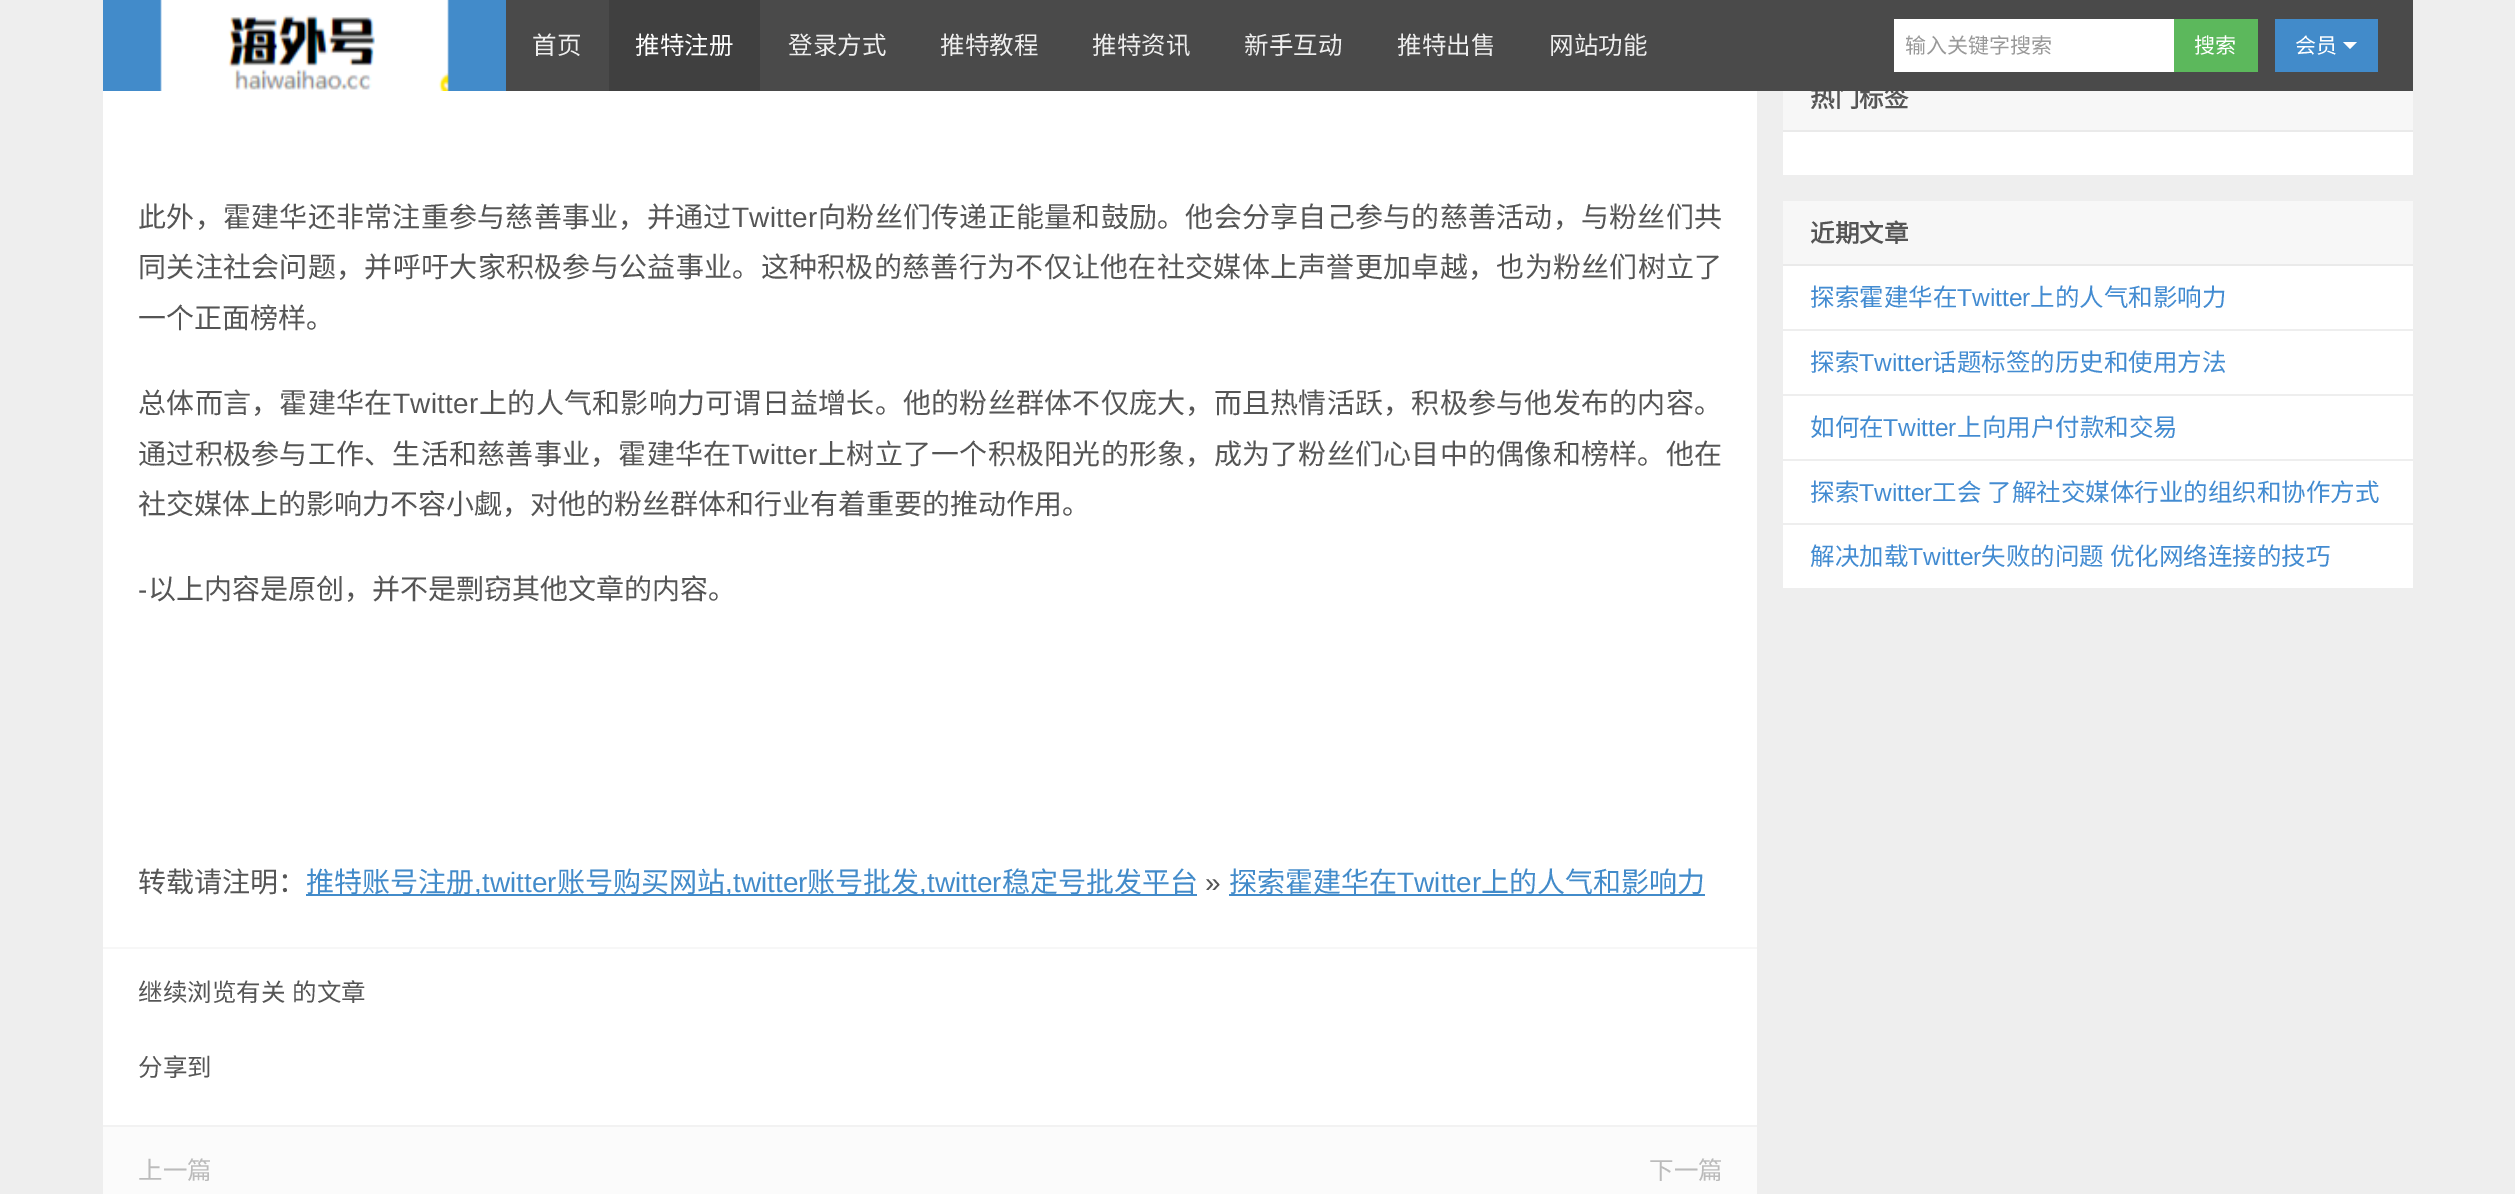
%!PS-Adobe-3.0
%%BoundingBox: 0 0 2515 1194
%%LanguageLevel: 3
%%Pages: 1
%%EndComments
%%BeginProlog
/drawimage { 5 dict begin { /h /w /y /x /name } { exch def } forall
  gsave x y translate w h scale
  w h 8 [w 0 0 h 0 0] name (r) file false 3 colorimage grestore end } def
%%EndProlog
%%BeginSetup
<< /PageSize [2515 1194] >> setpagedevice
%%EndSetup
%%Page: 1 1
0 1194 translate 1 -1 scale
4 setmiterlimit
0.933 setgray
0 0 2515 1194 rectfill
0.259 0.545 0.792 setrgbcolor
103 0 403 91 rectfill
(images/1.raw) 160 0 289 91 drawimage
1 setgray
103 91 1654 856 rectfill
0.259 0.545 0.792 setrgbcolor
306 894 891 2 rectfill
1229 894 476 2 rectfill
1 setgray
103 949 1654 176 rectfill
0.969 setgray
103 947 1654 2 rectfill
0.984 setgray
103 1127 1654 67 rectfill
0.949 setgray
103 1125 1654 2 rectfill
1 setgray
1783 132 630 43 rectfill
0.969 setgray
1783 91 630 39 rectfill
0.918 setgray
1783 130 630 2 rectfill
1 setgray
1783 266 630 322 rectfill
0.969 setgray
1783 201 630 63 rectfill
0.918 setgray
1783 264 630 2 rectfill
0.933 setgray
1783 329 630 2 rectfill
1783 394 630 2 rectfill
1783 459 630 2 rectfill
1783 523 630 2 rectfill
/NotoSansCJKSC-Regular [28 0 0 -28 0 0] selectfont
0.333 setgray
138 227 moveto 0.25 0 (此外，霍建华还非常注重参与慈善事业，并通过) ashow
/LiberationSans-Regular [28 0 0 -28 0 0] selectfont
732 227 moveto 0.25 0 (Twitter) ashow
/NotoSansCJKSC-Regular [28 0 0 -28 0 0] selectfont
818 227 moveto 0.25 0 (向粉丝们传递正能量和鼓励。他会分享自己参与的慈善活动，与粉丝们共) ashow
138 277 moveto 0.3 0 (同关注社会问题，并呼吁大家积极参与公益事业。这种积极的慈善行为不仅让他在社交媒体上声誉更加卓越，也为粉丝们树立了) ashow
138 328 moveto (一个正面榜样。) show
138 413 moveto 0.25 0 (总体而言，霍建华在) ashow
/LiberationSans-Regular [28 0 0 -28 0 0] selectfont
393 413 moveto 0.25 0 (Twitter) ashow
/NotoSansCJKSC-Regular [28 0 0 -28 0 0] selectfont
479 413 moveto 0.25 0 (上的人气和影响力可谓日益增长。他的粉丝群体不仅庞大，而且热情活跃，积极参与他发布的内容。) ashow
138 464 moveto 0.25 0 (通过积极参与工作、生活和慈善事业，霍建华在) ashow
/LiberationSans-Regular [28 0 0 -28 0 0] selectfont
732 464 moveto 0.25 0 (Twitter) ashow
/NotoSansCJKSC-Regular [28 0 0 -28 0 0] selectfont
818 464 moveto 0.25 0 (上树立了一个积极阳光的形象，成为了粉丝们心目中的偶像和榜样。他在) ashow
138 514 moveto (社交媒体上的影响力不容小觑，对他的粉丝群体和行业有着重要的推动作用。) show
/LiberationSans-Regular [28 0 0 -28 0 0] selectfont
138 599 moveto (-) show
/NotoSansCJKSC-Regular [28 0 0 -28 0 0] selectfont
148 599 moveto (以上内容是原创，并不是剽窃其他文章的内容。) show
138 892 moveto (转载请注明：) show
0.259 0.545 0.792 setrgbcolor
306 892 moveto (推特账号注册) show
/LiberationSans-Regular [28 0 0 -28 0 0] selectfont
474 892 moveto (,twitter) show
/NotoSansCJKSC-Regular [28 0 0 -28 0 0] selectfont
557 892 moveto (账号购买网站) show
/LiberationSans-Regular [28 0 0 -28 0 0] selectfont
725 892 moveto (,twitter) show
/NotoSansCJKSC-Regular [28 0 0 -28 0 0] selectfont
807 892 moveto (账号批发) show
/LiberationSans-Regular [28 0 0 -28 0 0] selectfont
919 892 moveto (,twitter) show
/NotoSansCJKSC-Regular [28 0 0 -28 0 0] selectfont
1002 892 moveto (稳定号批发平台) show
/LiberationSans-Regular [28 0 0 -28 0 0] selectfont
0.333 setgray
1205 892 moveto (») show
/NotoSansCJKSC-Regular [28 0 0 -28 0 0] selectfont
0.259 0.545 0.792 setrgbcolor
1229 892 moveto (探索霍建华在) show
/LiberationSans-Regular [28 0 0 -28 0 0] selectfont
1397 892 moveto (Twitter) show
/NotoSansCJKSC-Regular [28 0 0 -28 0 0] selectfont
1481 892 moveto (上的人气和影响力) show
/NotoSansCJKSC-Regular [24.5 0 0 -24.5 0 0] selectfont
0.333 setgray
138 1001 moveto (继续浏览有关) show
292 1001 moveto (的文章) show
138 1076 moveto (分享到) show
0.733 setgray
138 1179 moveto (上一篇) show
1649 1179 moveto (下一篇) show
/NotoSansCJKSC-Bold [24.5 0 0 -24.5 0 0] selectfont
0.333 setgray
1810 107 moveto (热门标签) show
0.29 setgray
506 0 1907 91 rectfill
0.251 setgray
609 0 151 91 rectfill
/NotoSansCJKSC-Regular [24.5 0 0 -24.5 0 0] selectfont
1 setgray
635 54 moveto (推特注册) show
0.259 0.545 0.792 setrgbcolor
2275 19 103 53 rectfill
1 setgray
newpath 2343 42 moveto 2357 42 lineto 2350 49 lineto closepath fill
/NotoSansCJKSC-Regular [21 0 0 -21 0 0] selectfont
2295 53 moveto (会员) show
0.361 0.722 0.361 setrgbcolor
2174 19 84 53 rectfill
1 setgray
2194 53 moveto (搜索) show
1894 19 280 53 rectfill
0.6 setgray
1905 53 moveto (输入关键字搜索) show
/NotoSansCJKSC-Regular [24.5 0 0 -24.5 0 0] selectfont
0.933 setgray
1549 54 moveto (网站功能) show
1397 54 moveto (推特出售) show
1244 54 moveto (新手互动) show
1092 54 moveto (推特资讯) show
940 54 moveto (推特教程) show
788 54 moveto (登录方式) show
532 54 moveto (首页) show
/NotoSansCJKSC-Bold [24.5 0 0 -24.5 0 0] selectfont
0.333 setgray
1810 242 moveto (近期文章) show
/NotoSansCJKSC-Regular [24.5 0 0 -24.5 0 0] selectfont
0.259 0.545 0.82 setrgbcolor
1810 306 moveto (探索霍建华在) show
/LiberationSans-Regular [24.5 0 0 -24.5 0 0] selectfont
1957 306 moveto (Twitter) show
/NotoSansCJKSC-Regular [24.5 0 0 -24.5 0 0] selectfont
2030 306 moveto (上的人气和影响力) show
1810 371 moveto (探索) show
/LiberationSans-Regular [24.5 0 0 -24.5 0 0] selectfont
1859 371 moveto (Twitter) show
/NotoSansCJKSC-Regular [24.5 0 0 -24.5 0 0] selectfont
1932 371 moveto (话题标签的历史和使用方法) show
1810 436 moveto (如何在) show
/LiberationSans-Regular [24.5 0 0 -24.5 0 0] selectfont
1883 436 moveto (Twitter) show
/NotoSansCJKSC-Regular [24.5 0 0 -24.5 0 0] selectfont
1957 436 moveto (上向用户付款和交易) show
1810 501 moveto (探索) show
/LiberationSans-Regular [24.5 0 0 -24.5 0 0] selectfont
1859 501 moveto (Twitter) show
/NotoSansCJKSC-Regular [24.5 0 0 -24.5 0 0] selectfont
1932 501 moveto 1 0 32 (工会 了解社交媒体行业的组织和协作方式) widthshow
1810 565 moveto (解决加载) show
/LiberationSans-Regular [24.5 0 0 -24.5 0 0] selectfont
1908 565 moveto (Twitter) show
/NotoSansCJKSC-Regular [24.5 0 0 -24.5 0 0] selectfont
1981 565 moveto 1 0 32 (失败的问题 优化网络连接的技巧) widthshow
showpage
%%EOF
